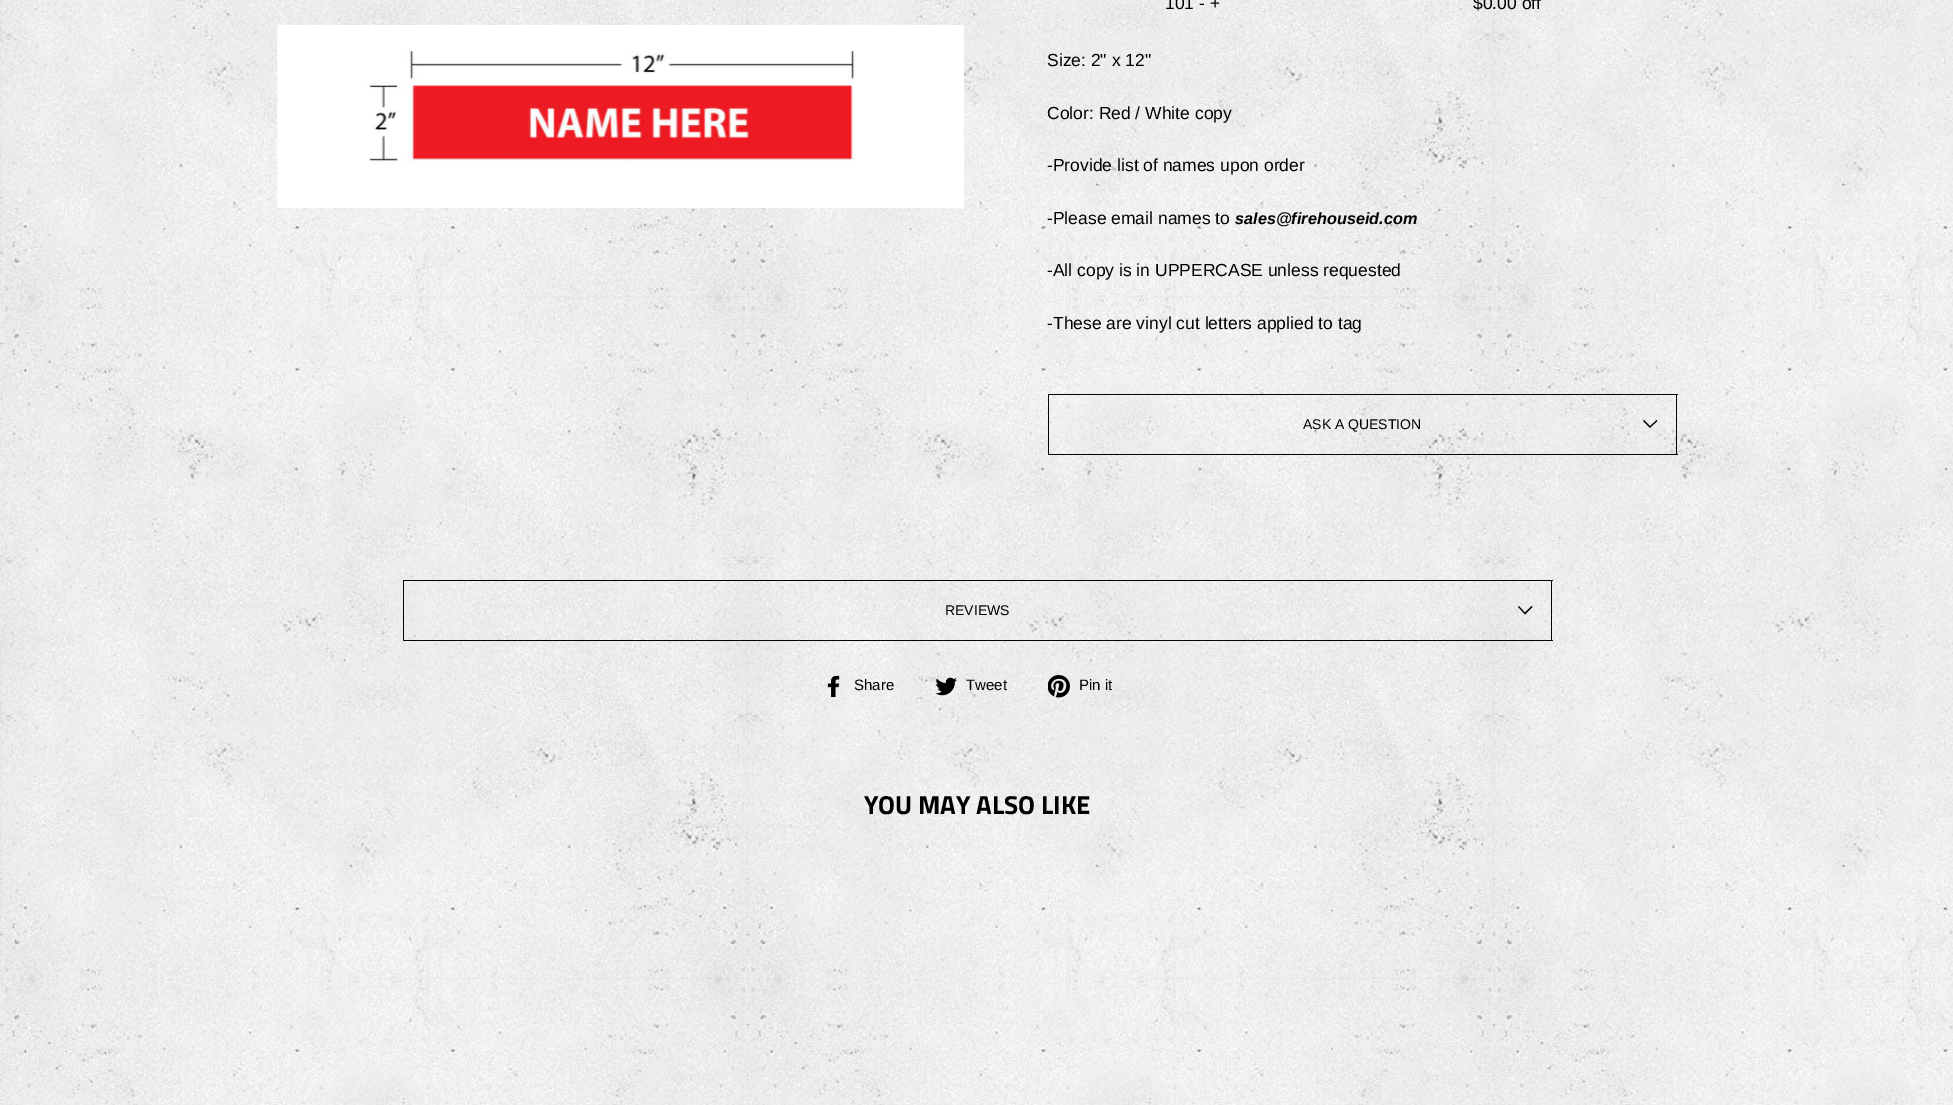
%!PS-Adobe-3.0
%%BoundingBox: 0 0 1953 1105
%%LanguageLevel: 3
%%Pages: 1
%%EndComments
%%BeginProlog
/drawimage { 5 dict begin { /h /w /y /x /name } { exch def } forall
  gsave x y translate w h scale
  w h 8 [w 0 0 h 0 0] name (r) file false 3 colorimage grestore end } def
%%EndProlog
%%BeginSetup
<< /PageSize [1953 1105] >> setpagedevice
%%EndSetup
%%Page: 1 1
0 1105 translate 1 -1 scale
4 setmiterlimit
1 setgray
0 0 1953 1105 rectfill
(images/1.raw) 0 0 1953 1105 drawimage
278 25 686 183 rectfill
(images/2.raw) 277 25 580 183 drawimage
0.02 setgray
1048 454 630 1 rectfill
1048 394 630 1 rectfill
1676 394 1 60 rectfill
1048 394 1 60 rectfill
0 setgray
1.1 setlinewidth
newpath 1643.5 420.5 moveto 1650 427 lineto 1657 420.5 lineto stroke
0.02 setgray
403 640 1150 1 rectfill
403 580 1150 1 rectfill
1551 580 1 60 rectfill
403 580 1 60 rectfill
0 setgray
newpath 1518.5 606.5 moveto 1525 613.5 lineto 1532 606.5 lineto stroke
(images/3.raw) 827 675 13 23 drawimage
(images/4.raw) 935 677 22 19 drawimage
(images/5.raw) 1048 675 22 23 drawimage
/LiberationSans-Regular [17.5 0 0 -17.5 0 0] selectfont
1165 9 moveto (101 - +) show
1473 9 moveto ($0.00 off) show
1047 66 moveto (Size: 2" x 12") show
1047 119 moveto (Color: Red / White copy) show
1047 171 moveto (-Provide list of names upon order) show
1047 224 moveto (-Please email names to) show
/LiberationSans-BoldItalic [16.25 0 0 -16.25 0 0] selectfont
1235 224 moveto (sales@firehouseid.com) show
/LiberationSans-Regular [17.5 0 0 -17.5 0 0] selectfont
1047 276 moveto (-All copy is in UPPERCASE unless requested) show
1047 329 moveto (-These are vinyl cut letters applied to tag) show
/LiberationSans-Regular [14 0 0 -14 0 0] selectfont
1303 429 moveto (ASK A QUESTION) show
945 615 moveto (REVIEWS) show
/LiberationSans-Regular [15 0 0 -15 0 0] selectfont
854 690 moveto (Share) show
966 690 moveto (Tweet) show
1079 690 moveto (Pin it) show
/TitilliumWeb-Bold [26 0 0 -26 0 0] selectfont
864 814 moveto (YOU MAY ALSO LIKE) show
showpage
%%EOF
